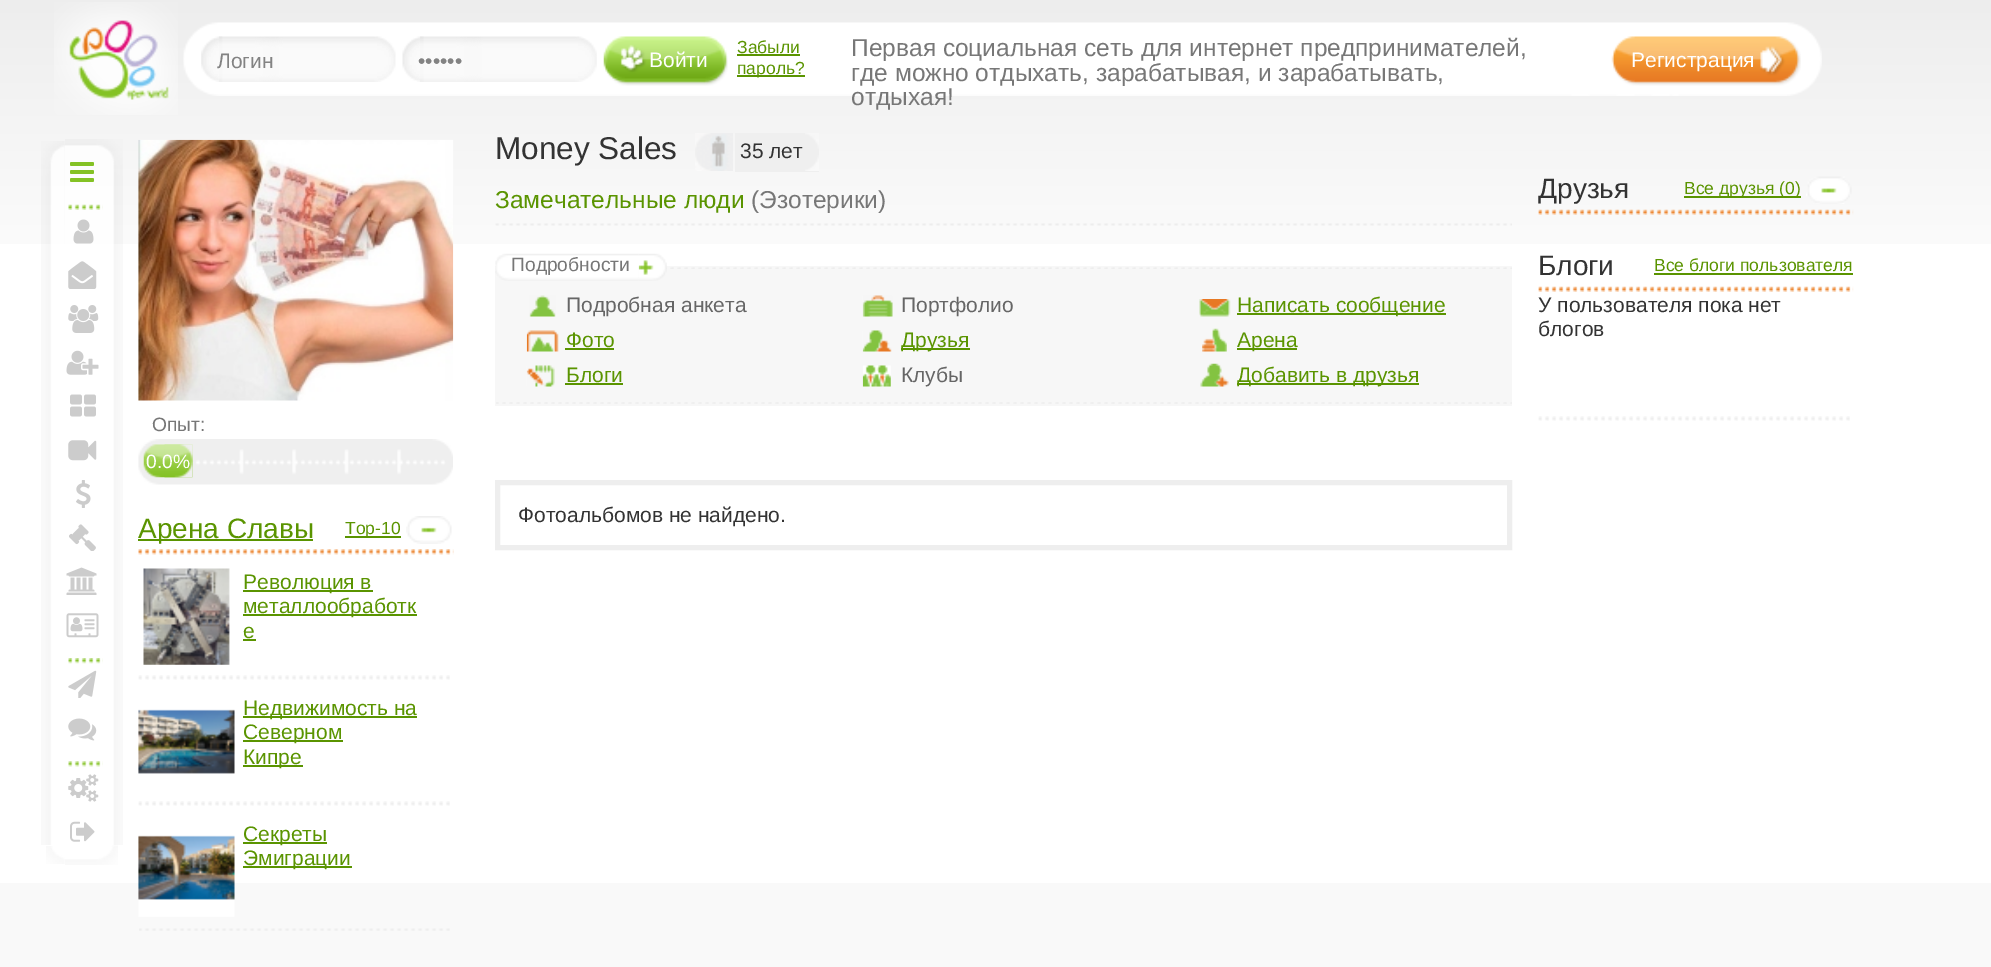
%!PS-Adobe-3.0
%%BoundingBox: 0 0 1991 967
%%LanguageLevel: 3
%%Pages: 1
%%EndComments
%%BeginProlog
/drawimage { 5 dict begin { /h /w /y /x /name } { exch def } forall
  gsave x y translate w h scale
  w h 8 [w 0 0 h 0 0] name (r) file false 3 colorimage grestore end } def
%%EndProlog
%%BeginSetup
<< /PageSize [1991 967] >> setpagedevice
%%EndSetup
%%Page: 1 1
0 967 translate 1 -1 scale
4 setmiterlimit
1 setgray
0 0 1991 967 rectfill
(images/1.raw) 0 0 1991 244 drawimage
0.976 setgray
0 883 1991 84 rectfill
(images/2.raw) 183 22 1639 74 drawimage
(images/3.raw) 54 2 124 113 drawimage
(images/4.raw) 201 36 22 46 drawimage
(images/5.raw) 219 36 177 46 drawimage
(images/6.raw) 402 36 22 46 drawimage
(images/7.raw) 420 36 177 46 drawimage
(images/8.raw) 603 36 125 50 drawimage
0.353 0.58 0 setrgbcolor
737 54 63 2 rectfill
737 75 68 2 rectfill
(images/9.raw) 1611 36 190 50 drawimage
(images/10.raw) 46 846 19 18 drawimage
(images/11.raw) 65 845 53 20 drawimage
(images/12.raw) 41 141 24 704 drawimage
(images/13.raw) 65 139 58 706 drawimage
(images/14.raw) 70 162 24 20 drawimage
(images/15.raw) 68 204 35 6 drawimage
(images/16.raw) 73 219 21 25 drawimage
(images/17.raw) 68 261 29 28 drawimage
(images/18.raw) 68 305 31 28 drawimage
(images/19.raw) 66 350 33 25 drawimage
(images/20.raw) 70 394 26 23 drawimage
(images/21.raw) 68 440 29 21 drawimage
(images/22.raw) 76 480 15 28 drawimage
(images/23.raw) 69 524 27 27 drawimage
(images/24.raw) 66 567 31 28 drawimage
(images/25.raw) 66 613 33 25 drawimage
(images/26.raw) 68 658 35 6 drawimage
(images/27.raw) 68 670 29 28 drawimage
(images/28.raw) 68 718 29 23 drawimage
(images/29.raw) 68 761 35 6 drawimage
(images/30.raw) 68 774 31 28 drawimage
(images/31.raw) 70 821 25 21 drawimage
(images/32.raw) 695 133 38 38 drawimage
0.937 setgray
735 133 84 39 rectfill
(images/33.raw) 805 133 14 38 drawimage
(images/34.raw) 495 223 1017 3 drawimage
0.969 setgray
495 266 1017 140 rectfill
(images/37.raw) 638 267 874 2 drawimage
(images/35.raw) 638 253 29 28 drawimage
(images/36.raw) 495 253 144 28 drawimage
(images/38.raw) 496 402 1016 2 drawimage
(images/39.raw) 529 295 27 22 drawimage
(images/40.raw) 526 330 33 22 drawimage
0.353 0.58 0 setrgbcolor
565 348 49 2 rectfill
(images/41.raw) 526 365 29 22 drawimage
565 383 58 2 rectfill
(images/42.raw) 862 295 31 22 drawimage
(images/43.raw) 862 330 30 22 drawimage
901 348 69 2 rectfill
(images/44.raw) 862 365 29 22 drawimage
(images/45.raw) 1199 299 32 18 drawimage
1237 313 209 2 rectfill
(images/46.raw) 1202 328 25 24 drawimage
1237 348 60 2 rectfill
(images/47.raw) 1200 363 29 24 drawimage
1237 383 182 2 rectfill
0.933 setgray
5 setlinewidth
497.5 482.5 1012 65 rectstroke
(images/48.raw) 1538 209 316 6 drawimage
0.353 0.58 0 setrgbcolor
1684 196 117 2 rectfill
(images/49.raw) 1806 176 46 28 drawimage
(images/50.raw) 1538 286 316 6 drawimage
1654 273 199 2 rectfill
(images/51.raw) 1538 416 312 5 drawimage
(images/52.raw) 138 139 316 262 drawimage
(images/53.raw) 138 439 315 46 drawimage
(images/54.raw) 143 444 50 34 drawimage
(images/55.raw) 164 444 29 34 drawimage
(images/56.raw) 138 549 316 6 drawimage
138 539 175 2 rectfill
345 536 56 2 rectfill
(images/57.raw) 406 516 46 28 drawimage
(images/51.raw) 138 675 312 5 drawimage
(images/58.raw) 143 568 87 97 drawimage
243 590 130 2 rectfill
243 614 174 2 rectfill
243 639 13 2 rectfill
(images/51.raw) 138 801 312 5 drawimage
(images/59.raw) 138 709 97 65 drawimage
243 716 174 2 rectfill
243 740 100 2 rectfill
243 765 60 2 rectfill
(images/60.raw) 139 928 311 3 drawimage
(images/61.raw) 138 835 97 82 drawimage
243 842 84 2 rectfill
243 866 109 2 rectfill
/LiberationSans-Regular [21 0 0 -21 0 0] selectfont
0.514 setgray
217 68 moveto (Логин) show
418 68 moveto (••••••) show
1 setgray
649 67 moveto (Войти) show
/LiberationSans-Regular [17.5 0 0 -17.5 0 0] selectfont
0.353 0.58 0 setrgbcolor
737 53 moveto (Забыли) show
737 74 moveto (пароль?) show
/LiberationSans-Regular [24.5 0 0 -24.5 0 0] selectfont
0.467 setgray
851 56 moveto (Первая социальная сеть для интернет предпринимателей,) show
851 81 moveto (где можно отдыхать, зарабатывая, и зарабатывать,) show
851 105 moveto (отдыхая!) show
/LiberationSans-Regular [21 0 0 -21 0 0] selectfont
1 setgray
1631 67 moveto (Регистрация) show
/LiberationSans-Regular [31.5 0 0 -31.5 0 0] selectfont
0.2 setgray
495 159 moveto (Money Sales) show
/LiberationSans-Regular [21 0 0 -21 0 0] selectfont
740 158 moveto (35 лет) show
/LiberationSans-Regular [24.5 0 0 -24.5 0 0] selectfont
0.353 0.58 0 setrgbcolor
495 208 moveto (Замечательные люди) show
0.467 setgray
751 208 moveto (\(Эзотерики\)) show
/LiberationSans-Regular [19.25 0 0 -19.25 0 0] selectfont
511 271 moveto (Подробности) show
/LiberationSans-Regular [21 0 0 -21 0 0] selectfont
0.4 setgray
566 312 moveto (Подробная анкета) show
0.353 0.58 0 setrgbcolor
566 347 moveto (Фото) show
566 382 moveto (Блоги) show
0.4 setgray
901 312 moveto (Портфолио) show
0.353 0.58 0 setrgbcolor
901 347 moveto (Друзья) show
0.4 setgray
901 382 moveto (Клубы) show
0.353 0.58 0 setrgbcolor
1237 312 moveto (Написать сообщение) show
1237 347 moveto (Арена) show
1237 382 moveto (Добавить в друзья) show
0.2 setgray
518 522 moveto (Фотоальбомов не найдено.) show
/LiberationSans-Regular [28 0 0 -28 0 0] selectfont
1538 198 moveto (Друзья) show
/LiberationSans-Regular [17.5 0 0 -17.5 0 0] selectfont
0.353 0.58 0 setrgbcolor
1684 194 moveto (Все друзья \(0\)) show
/LiberationSans-Regular [28 0 0 -28 0 0] selectfont
0.2 setgray
1538 275 moveto (Блоги) show
/LiberationSans-Regular [17.5 0 0 -17.5 0 0] selectfont
0.353 0.58 0 setrgbcolor
1654 271 moveto (Все блоги пользователя) show
/LiberationSans-Regular [21 0 0 -21 0 0] selectfont
0.2 setgray
1538 312 moveto (У пользователя пока нет) show
1538 336 moveto (блогов) show
/LiberationSans-Regular [19.25 0 0 -19.25 0 0] selectfont
0.467 setgray
152 431 moveto (Опыт:) show
1 setgray
146 468 moveto (0.0%) show
/LiberationSans-Regular [28 0 0 -28 0 0] selectfont
0.353 0.58 0 setrgbcolor
138 538 moveto (Арена Славы) show
/LiberationSans-Regular [17.5 0 0 -17.5 0 0] selectfont
345 534 moveto (Top-10) show
/LiberationSans-Regular [21 0 0 -21 0 0] selectfont
243 589 moveto (Революция в) show
243 613 moveto (металлообработк) show
243 638 moveto (е) show
243 715 moveto (Недвижимость на) show
243 739 moveto (Северном) show
243 764 moveto (Кипре) show
243 841 moveto (Секреты) show
243 865 moveto (Эмиграции) show
showpage
%%EOF
